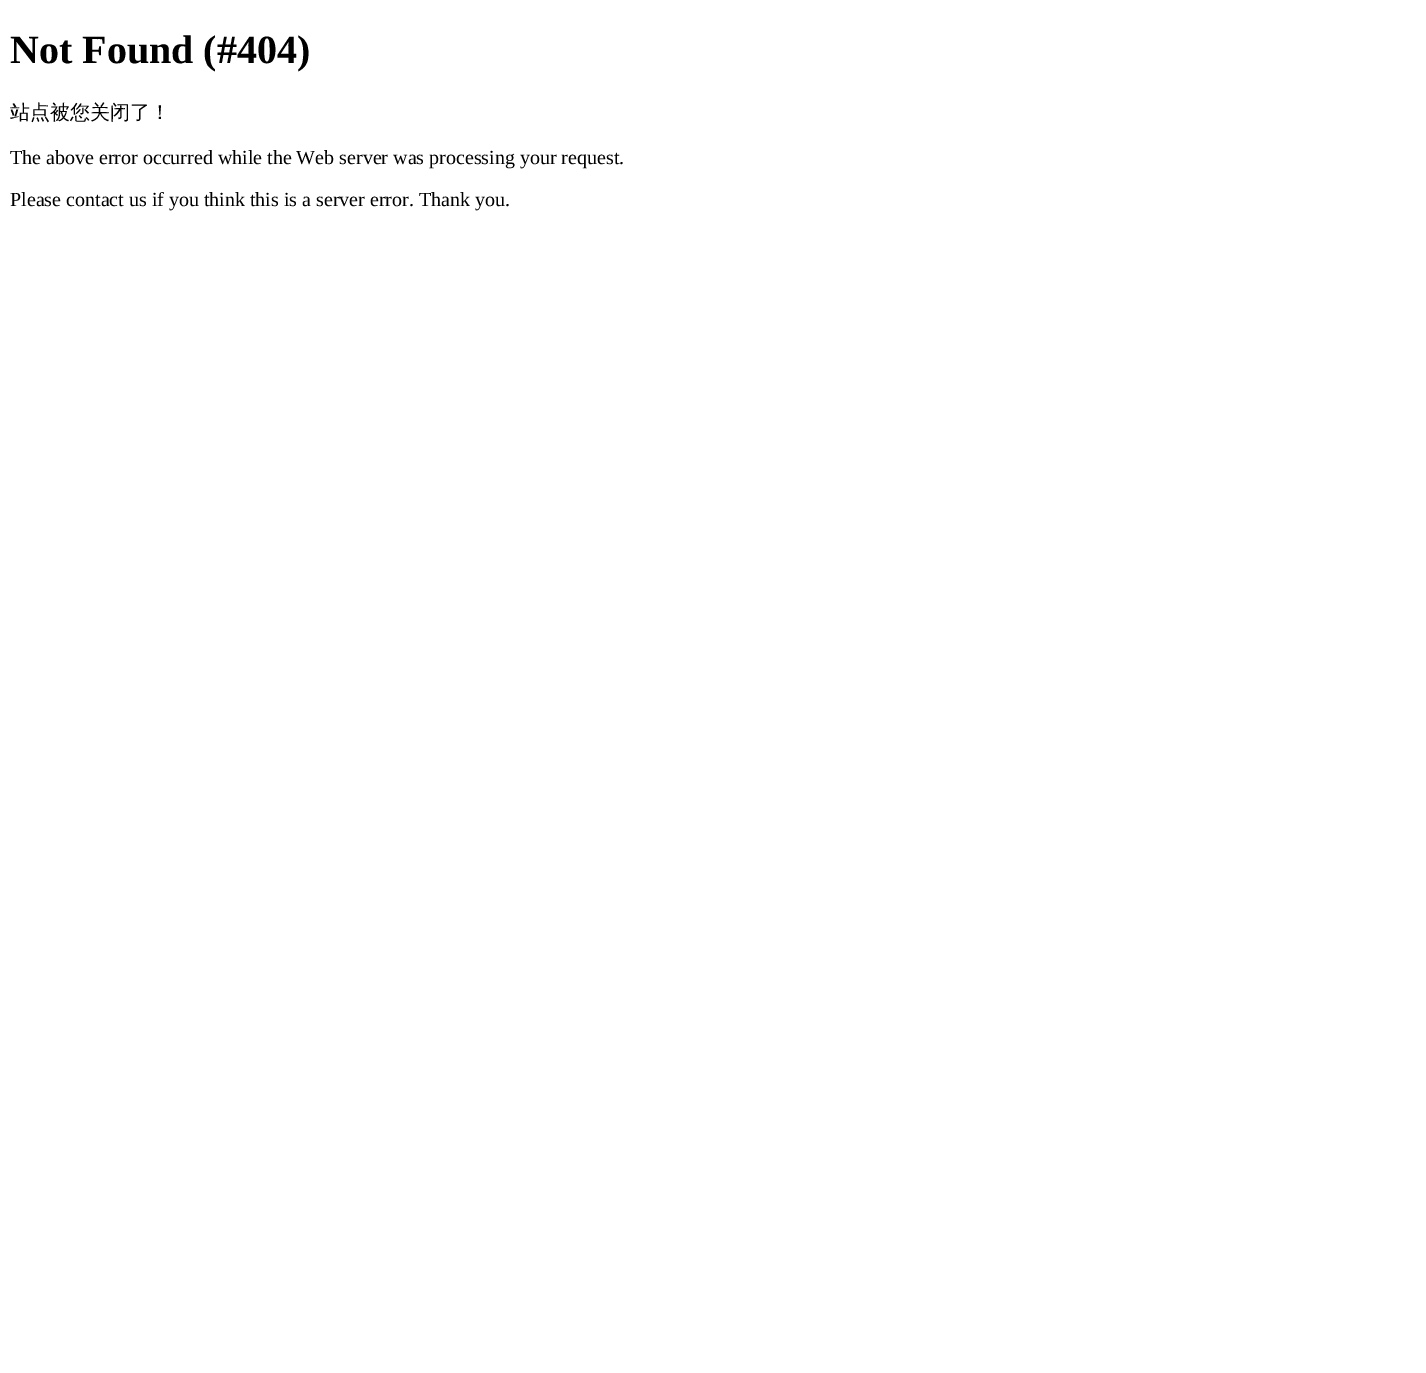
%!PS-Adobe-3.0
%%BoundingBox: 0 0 1426 1373
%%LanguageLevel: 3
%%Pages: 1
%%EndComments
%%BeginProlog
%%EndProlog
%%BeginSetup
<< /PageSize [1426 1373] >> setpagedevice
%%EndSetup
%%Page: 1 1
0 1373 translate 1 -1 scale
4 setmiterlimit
1 setgray
0 0 1426 1373 rectfill
/LiberationSerif-Bold [40 0 0 -40 0 0] selectfont
0 setgray
10 63 moveto (Not Found \(#404\)) show
/WenQuanYiZenHei-Medium [20 0 0 -20 0 0] selectfont
10 119 moveto (站点被您关闭了！) show
/LiberationSerif-Regular [20 0 0 -20 0 0] selectfont
10 164 moveto (The above error occurred while the Web server was processing your request.) show
10 206 moveto (Please contact us if you think this is a server error. Thank you.) show
showpage
%%EOF
